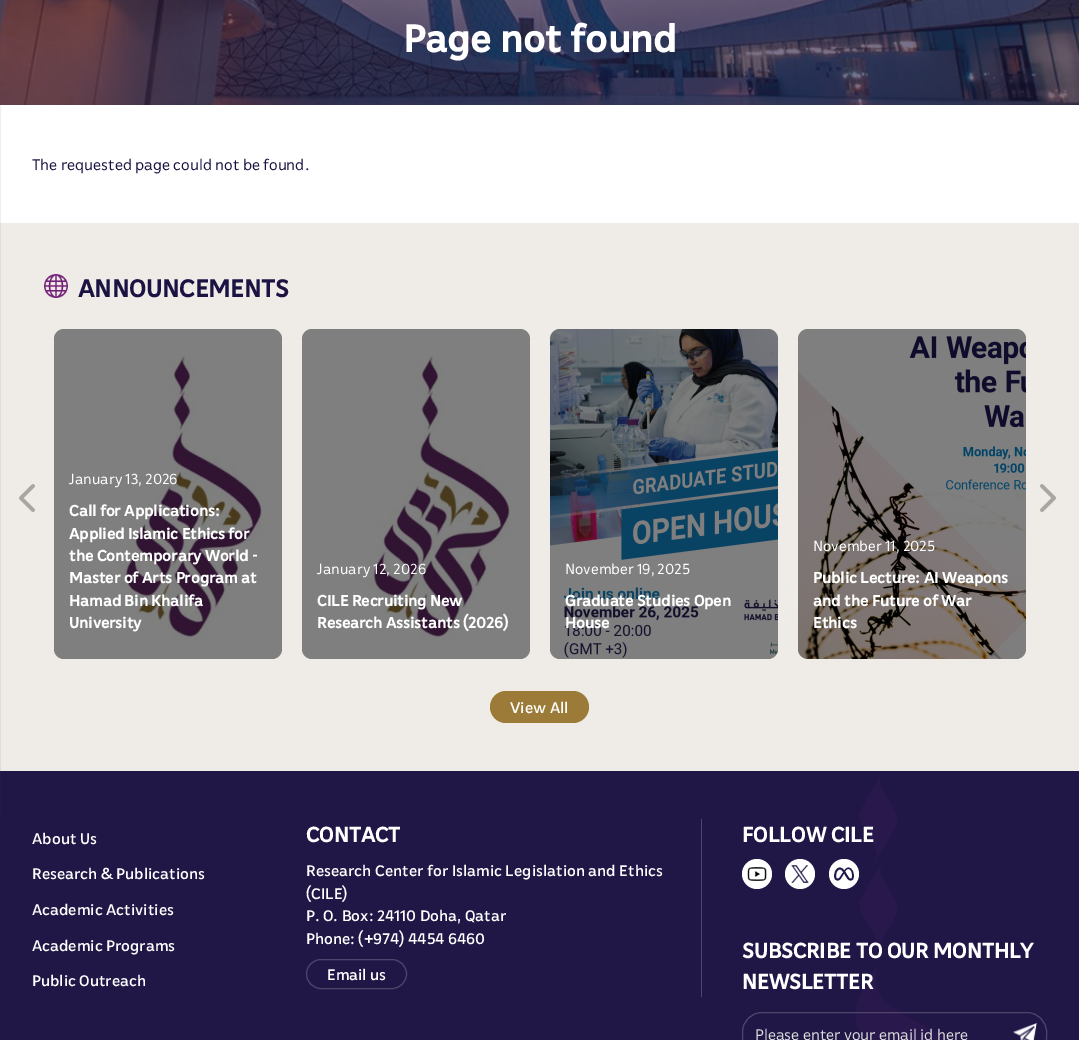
%!PS-Adobe-3.0
%%BoundingBox: 0 0 1079 1040
%%LanguageLevel: 3
%%Pages: 1
%%EndComments
%%BeginProlog
/setalpha { dup .setfillconstantalpha .setstrokeconstantalpha } def
/rrect { 5 dict begin { /r /h /w /y /x } { exch def } forall
  x r add y moveto x w add y 2 copy h add r arct x w add y h add x 1 index r arct
  x y h add x y r arct x y 2 copy exch w add exch r arct closepath end } def
/softshadow { 12 dict begin { /a /b /q /h /w /y /x } { exch def } forall gsave /was 0 def
  9 -2 -9 { dup b mul 4 div /e exch def 1 sub .425 mul 2.718 exch exp 1 add a .99 .min exch div /now exch def
    1 1 now sub 1 was sub div sub setalpha /was now def
    w h .min e 2 mul add 0 gt { x e sub y e sub w e 2 mul add h e 2 mul add
      q e add b .6 mul add w h .min 2 div e add .min 0 .max rrect fill } if } for grestore end } def
/drawimage { 5 dict begin { /h /w /y /x /name } { exch def } forall
  gsave x y translate w h scale
  w h 8 [w 0 0 h 0 0] name (r) file false 3 colorimage grestore end } def
%%EndProlog
%%BeginSetup
<< /PageSize [1079 1040] /PageUsesTransparency true >> setpagedevice
%%EndSetup
%%Page: 1 1
0 .pushpdf14devicefilter
0 1040 translate 1 -1 scale
4 setmiterlimit
1 setgray
0 0 1079 1040 rectfill
(images/1.raw) 0 0 1079 105 drawimage
0.937 0.925 0.906 setrgbcolor
0 223 1079 548 rectfill
0.125 0.09 0.278 setrgbcolor
0 771 1079 269 rectfill
0.2 setgray
-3 -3 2 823 0 1 1 softshadow
(images/2.raw) 44 274 24 24 drawimage
(images/3.raw) 19 484 16 28 drawimage
(images/4.raw) 54 329 228 330 drawimage
0.5 setalpha
0 setgray
54 329 228 330 10 rrect fill
1 setalpha
(images/5.raw) 302 329 228 330 drawimage
0.5 setalpha
302 329 228 330 10 rrect fill
1 setalpha
(images/6.raw) 550 329 228 330 drawimage
0.5 setalpha
550 329 228 330 10 rrect fill
1 setalpha
(images/7.raw) 798 329 228 330 drawimage
0.5 setalpha
798 329 228 330 10 rrect fill
1 setalpha
(images/8.raw) 1040 484 16 28 drawimage
0.608 0.482 0.216 setrgbcolor
490 691 99 32 16 rrect fill
(images/9.raw) 855 772 94 268 drawimage
0.302 0.271 0.424 setrgbcolor
701 819 1 178 rectfill
306.5 959.5 100 29 14.5 rrect stroke
1 setgray
newpath 757 874 15 0 360 arc closepath fill
(images/10.raw) 747 867 20 14 drawimage
newpath 800 874 15 0 360 arc closepath fill
(images/11.raw) 791 865 18 18 drawimage
newpath 844 874 15 0 360 arc closepath fill
(images/12.raw) 834 867 20 14 drawimage
0.302 0.271 0.424 setrgbcolor
742.5 1012.5 304 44 19.5 rrect stroke
(images/13.raw) 1013 1023 24 17 drawimage
/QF-Bold [40 0 0 -40 0 0] selectfont
1 setgray
403 52 moveto (Page not found) show
/QF-Regular [16 0 0 -16 0 0] selectfont
0.11 0.075 0.263 setrgbcolor
32 170 moveto (The requested page could not be found.) show
/QF-Bold [25.5 0 0 -25.5 0 0] selectfont
78 297 moveto (ANNOUNCEMENTS) show
/QF-Regular [15.25 0 0 -15.25 0 0] selectfont
1 setgray
69 484 moveto (January 13, 2026) show
/QF-Bold [16 0 0 -16 0 0] selectfont
69 516 moveto (Call for Applications:) show
69 539 moveto (Applied Islamic Ethics for) show
69 561 moveto (the Contemporary World -) show
69 583 moveto (Master of Arts Program at) show
69 606 moveto (Hamad Bin Khalifa) show
69 628 moveto (University) show
/QF-Regular [15.25 0 0 -15.25 0 0] selectfont
317 574 moveto (January 12, 2026) show
/QF-Bold [16 0 0 -16 0 0] selectfont
317 606 moveto (CILE Recruiting New) show
317 628 moveto (Research Assistants \(2026\)) show
/QF-Regular [15.25 0 0 -15.25 0 0] selectfont
565 574 moveto (November 19, 2025) show
/QF-Bold [16 0 0 -16 0 0] selectfont
565 606 moveto (Graduate Studies Open) show
565 628 moveto (House) show
/QF-Regular [15.25 0 0 -15.25 0 0] selectfont
813 551 moveto (November 11, 2025) show
/QF-Bold [16 0 0 -16 0 0] selectfont
813 583 moveto (Public Lecture: AI Weapons) show
813 606 moveto (and the Future of War) show
813 628 moveto (Ethics) show
/QF-Medium [16 0 0 -16 0 0] selectfont
510 713 moveto (View All) show
32 844 moveto (About Us) show
32 879 moveto (Research & Publications) show
32 915 moveto (Academic Activities) show
32 951 moveto (Academic Programs) show
32 986 moveto (Public Outreach) show
/QF-Bold [22 0 0 -22 0 0] selectfont
306 842 moveto (CONTACT) show
/QF-Medium [16 0 0 -16 0 0] selectfont
306 876 moveto (Research Center for Islamic Legislation and Ethics) show
306 899 moveto (\(CILE\)) show
306 921 moveto (P. O. Box: 24110 Doha, Qatar) show
306 944 moveto (Phone: \(+974\) 4454 6460) show
327 980 moveto (Email us) show
/QF-Bold [22 0 0 -22 0 0] selectfont
742 842 moveto (FOLLOW CILE) show
742 958 moveto (SUBSCRIBE TO OUR MONTHLY) show
742 989 moveto (NEWSLETTER) show
/QF-Regular [16 0 0 -16 0 0] selectfont
0.867 setgray
755 1040 moveto (Please enter your email id here) show
.poppdf14devicefilter showpage
%%EOF
